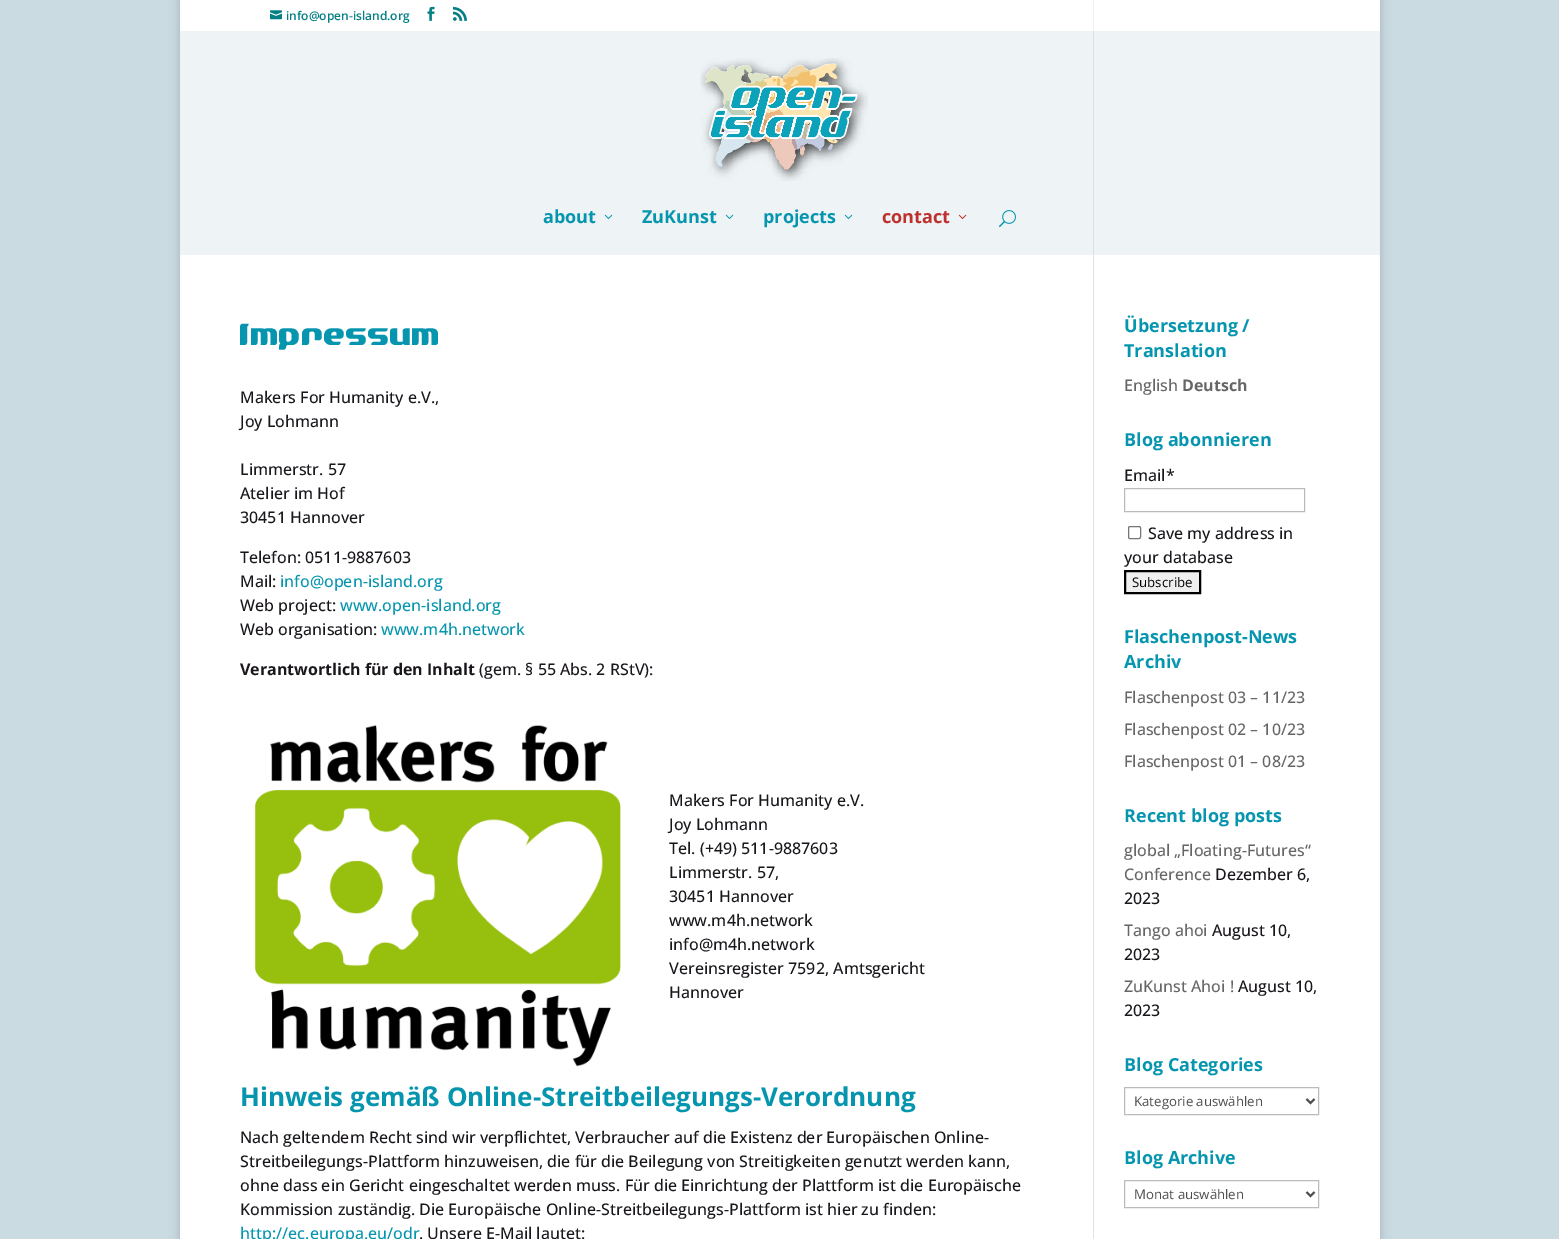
%!PS-Adobe-3.0
%%BoundingBox: 0 0 1559 1239
%%LanguageLevel: 3
%%Pages: 1
%%EndComments
%%BeginProlog
/setalpha { dup .setfillconstantalpha .setstrokeconstantalpha } def
/rrect { 5 dict begin { /r /h /w /y /x } { exch def } forall
  x r add y moveto x w add y 2 copy h add r arct x w add y h add x 1 index r arct
  x y h add x y r arct x y 2 copy exch w add exch r arct closepath end } def
/softshadow { 12 dict begin { /a /b /q /h /w /y /x } { exch def } forall gsave /was 0 def
  9 -2 -9 { dup b mul 4 div /e exch def 1 sub .425 mul 2.718 exch exp 1 add a .99 .min exch div /now exch def
    1 1 now sub 1 was sub div sub setalpha /was now def
    w h .min e 2 mul add 0 gt { x e sub y e sub w e 2 mul add h e 2 mul add
      q e add b .6 mul add w h .min 2 div e add .min 0 .max rrect fill } if } for grestore end } def
/drawimage { 5 dict begin { /h /w /y /x /name } { exch def } forall
  gsave x y translate w h scale
  w h 8 [w 0 0 h 0 0] name (r) file false 3 colorimage grestore end } def
%%EndProlog
%%BeginSetup
<< /PageSize [1559 1239] /PageUsesTransparency true >> setpagedevice
%%EndSetup
%%Page: 1 1
0 .pushpdf14devicefilter
0 1239 translate 1 -1 scale
4 setmiterlimit
0.796 0.859 0.886 setrgbcolor
0 0 1559 1239 rectfill
0 setgray
180 0 1200 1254 0 5 0.2 softshadow
1 setgray
180 0 1200 31 rectfill
(images/1.raw) 270 10 12 10 drawimage
(images/2.raw) 427 6 8 15 drawimage
(images/3.raw) 453 6 14 15 drawimage
0.933 0.953 0.965 setrgbcolor
180 31 1200 224 rectfill
(images/4.raw) 700 58 168 123 drawimage
(images/5.raw) 604 214 9 5 drawimage
(images/5.raw) 725 214 9 5 drawimage
(images/5.raw) 844 214 9 5 drawimage
(images/6.raw) 958 214 9 5 drawimage
(images/7.raw) 999 210 17 18 drawimage
1 setgray
180 255 1200 984 rectfill
0.886 setgray
1093 255 1 984 rectfill
0.945 setgray
1093 0 1 31 rectfill
0.859 0.878 0.886 setrgbcolor
1093 31 1 224 rectfill
(images/8.raw) 254 725 367 342 drawimage
0.733 setgray
1124.5 488.5 180 23 rectstroke
0.463 setgray
1128.5 526.5 12 12 1.5 rrect stroke
0.937 setgray
newpath 1125 571 moveto 1200 571 lineto 1200 593 lineto 1125 593 lineto closepath gsave fill grestore
0 setgray
2 setlinewidth
stroke
0.733 setgray
1 setlinewidth
1124.5 1087.5 194 27 rectstroke
0.306 setgray
2 setlinewidth
newpath 1306.5 1099 moveto 1310.5 1103 lineto 1314.5 1099 lineto stroke
0.733 setgray
1 setlinewidth
1124.5 1180.5 194 27 rectstroke
0.306 setgray
2 setlinewidth
newpath 1306.5 1192 moveto 1310.5 1196 lineto 1314.5 1192 lineto stroke
/OpenSans-SemiBold [12 0 0 -12 0 0] selectfont
0.016 0.502 0.518 setrgbcolor
286 20 moveto (info@open-island.org) show
/OpenSans-Bold [18 0 0 -18 0 0] selectfont
0.024 0.584 0.682 setrgbcolor
543 223 moveto (about) show
642 223 moveto (ZuKunst) show
763 223 moveto (projects) show
0.741 0.188 0.173 setrgbcolor
882 223 moveto (contact) show
/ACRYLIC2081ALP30-Bold [30 0 0 -30 0 0] selectfont
0.024 0.584 0.682 setrgbcolor
240 345 moveto (Impressum) show
/OpenSans-Medium [16 0 0 -16 0 0] selectfont
0.102 0.09 0.11 setrgbcolor
240 403 moveto (Makers For Humanity e.V.,) show
240 427 moveto (Joy Lohmann) show
240 475 moveto (Limmerstr. 57) show
240 499 moveto (Atelier im Hof) show
240 523 moveto (30451 Hannover) show
240 563 moveto (Telefon: 0511-9887603) show
240 587 moveto (Mail:) show
0.024 0.584 0.682 setrgbcolor
280 587 moveto (info@open-island.org) show
0.102 0.09 0.11 setrgbcolor
240 611 moveto (Web project:) show
0.024 0.584 0.682 setrgbcolor
340 611 moveto (www.open-island.org) show
0.102 0.09 0.11 setrgbcolor
240 635 moveto (Web organisation:) show
0.024 0.584 0.682 setrgbcolor
381 635 moveto (www.m4h.network) show
/OpenSans-Bold [16 0 0 -16 0 0] selectfont
0.102 0.09 0.11 setrgbcolor
240 675 moveto (Verantwortlich für den Inhalt) show
/OpenSans-Medium [16 0 0 -16 0 0] selectfont
479 675 moveto (\(gem. § 55 Abs. 2 RStV\):) show
669 806 moveto (Makers For Humanity e.V.) show
669 830 moveto (Joy Lohmann) show
669 854 moveto (Tel. \(+49\) 511-9887603) show
669 878 moveto (Limmerstr. 57,) show
669 902 moveto (30451 Hannover) show
669 926 moveto (www.m4h.network) show
669 950 moveto (info@m4h.network) show
669 974 moveto (Vereinsregister 7592, Amtsgericht) show
669 998 moveto (Hannover) show
/OpenSans-Bold [26 0 0 -26 0 0] selectfont
0.024 0.584 0.682 setrgbcolor
240 1106 moveto (Hinweis gemäß Online-Streitbeilegungs-Verordnung) show
/OpenSans-Medium [16 0 0 -16 0 0] selectfont
0.102 0.09 0.11 setrgbcolor
240 1143 moveto (Nach geltendem Recht sind wir verpflichtet, Verbraucher auf die Existenz der Europäischen Online-) show
240 1167 moveto (Streitbeilegungs-Plattform hinzuweisen, die für die Beilegung von Streitigkeiten genutzt werden kann,) show
240 1191 moveto (ohne dass ein Gericht eingeschaltet werden muss. Für die Einrichtung der Plattform ist die Europäische) show
240 1215 moveto (Kommission zuständig. Die Europäische Online-Streitbeilegungs-Plattform ist hier zu finden:) show
0.024 0.584 0.682 setrgbcolor
240 1239 moveto (http://ec.europa.eu/odr) show
0.102 0.09 0.11 setrgbcolor
419 1239 moveto (. Unsere E-Mail lautet:) show
/OpenSans-Bold [18 0 0 -18 0 0] selectfont
0.024 0.584 0.682 setrgbcolor
1124 332 moveto (Übersetzung /) show
1124 357 moveto (Translation) show
/OpenSans-Medium [16 0 0 -16 0 0] selectfont
0.4 setgray
1124 391 moveto (English) show
/OpenSans-Bold [16 0 0 -16 0 0] selectfont
1182 391 moveto (Deutsch) show
/OpenSans-Bold [18 0 0 -18 0 0] selectfont
0.024 0.584 0.682 setrgbcolor
1124 446 moveto (Blog abonnieren) show
/OpenSans-Medium [16 0 0 -16 0 0] selectfont
0.102 0.09 0.11 setrgbcolor
1124 481 moveto (Email*) show
1148 539 moveto (Save my address in) show
1124 563 moveto (your database) show
/OpenSans-Regular [13.25 0 0 -13.25 0 0] selectfont
0 setgray
1132 587 moveto (Subscribe) show
/OpenSans-Bold [18 0 0 -18 0 0] selectfont
0.024 0.584 0.682 setrgbcolor
1124 643 moveto (Flaschenpost-News) show
1124 668 moveto (Archiv) show
/OpenSans-Medium [16 0 0 -16 0 0] selectfont
0.4 setgray
1124 703 moveto (Flaschenpost 03 – 11/23) show
1124 735 moveto (Flaschenpost 02 – 10/23) show
1124 767 moveto (Flaschenpost 01 – 08/23) show
/OpenSans-Bold [18 0 0 -18 0 0] selectfont
0.024 0.584 0.682 setrgbcolor
1124 822 moveto (Recent blog posts) show
/OpenSans-Medium [16 0 0 -16 0 0] selectfont
0.4 setgray
1124 856 moveto (global „Floating-Futures“) show
1124 880 moveto (Conference) show
0.102 0.09 0.11 setrgbcolor
1215 880 moveto (Dezember 6,) show
1124 904 moveto (2023) show
0.4 setgray
1124 936 moveto (Tango ahoi) show
0.102 0.09 0.11 setrgbcolor
1212 936 moveto (August 10,) show
1124 960 moveto (2023) show
0.4 setgray
1124 992 moveto (ZuKunst Ahoi !) show
0.102 0.09 0.11 setrgbcolor
1238 992 moveto (August 10,) show
1124 1016 moveto (2023) show
/OpenSans-Bold [18 0 0 -18 0 0] selectfont
0.024 0.584 0.682 setrgbcolor
1124 1071 moveto (Blog Categories) show
/OpenSans-Regular [13.25 0 0 -13.25 0 0] selectfont
0.306 setgray
1134 1106 moveto (Kategorie auswählen) show
/OpenSans-Bold [18 0 0 -18 0 0] selectfont
0.024 0.584 0.682 setrgbcolor
1124 1164 moveto (Blog Archive) show
/OpenSans-Regular [13.25 0 0 -13.25 0 0] selectfont
0.306 setgray
1134 1199 moveto (Monat auswählen) show
.poppdf14devicefilter showpage
%%EOF
